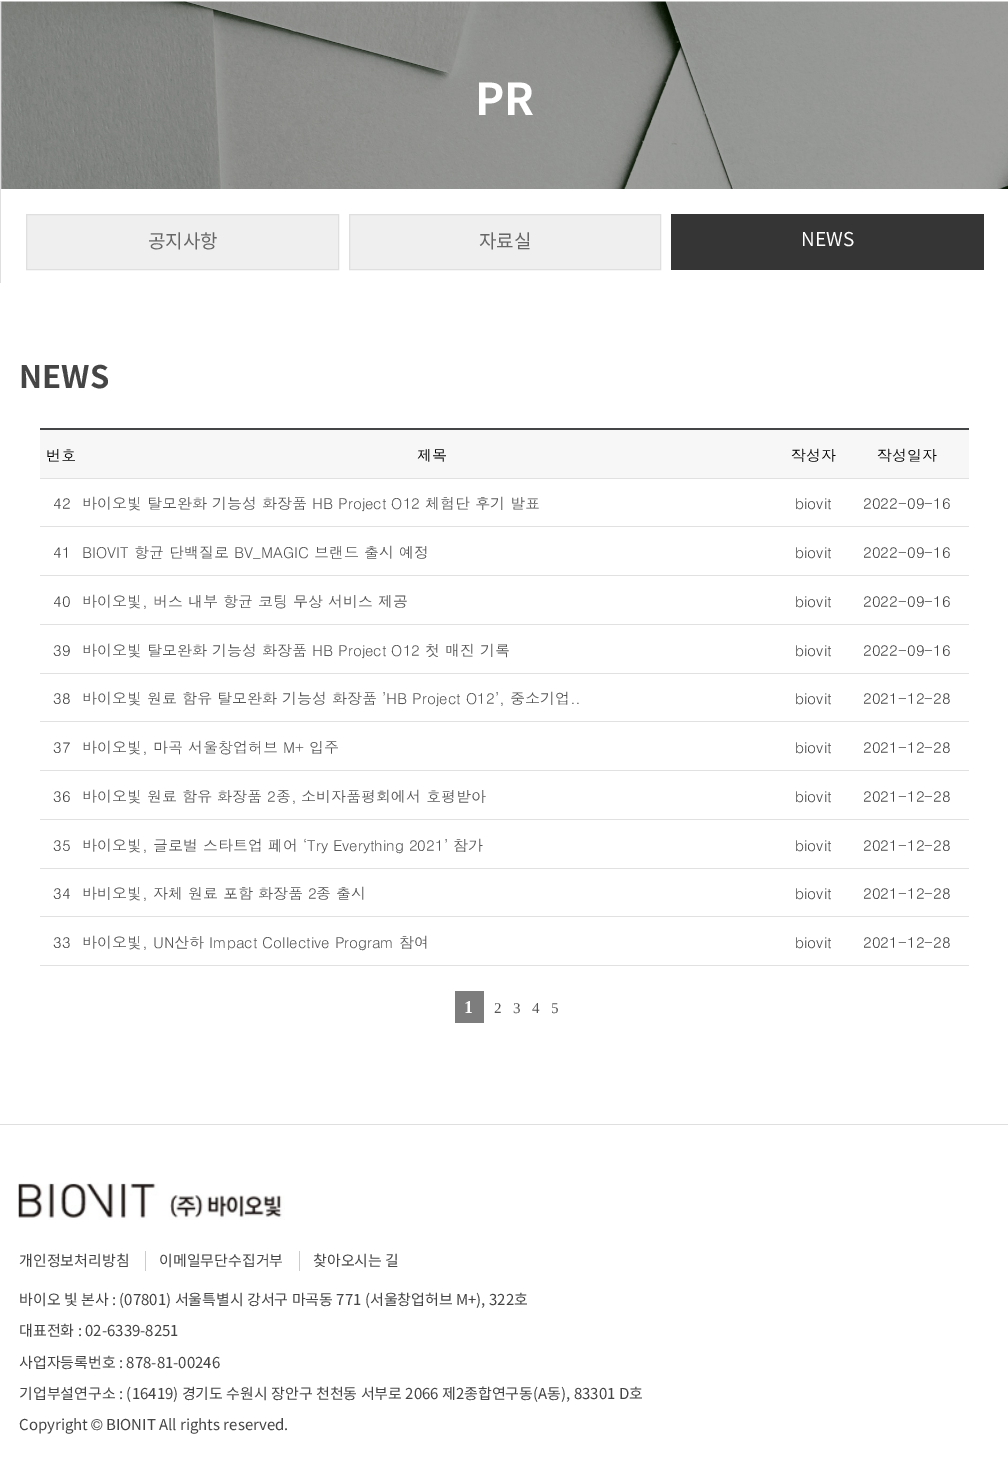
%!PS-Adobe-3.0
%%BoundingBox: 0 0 1008 1474
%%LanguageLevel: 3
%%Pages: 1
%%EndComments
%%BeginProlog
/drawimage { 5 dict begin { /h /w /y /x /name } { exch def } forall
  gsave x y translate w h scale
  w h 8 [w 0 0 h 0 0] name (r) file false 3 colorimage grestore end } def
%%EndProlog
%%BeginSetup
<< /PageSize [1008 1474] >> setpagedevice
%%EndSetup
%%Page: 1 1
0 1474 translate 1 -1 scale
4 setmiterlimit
1 setgray
0 0 1008 1474 rectfill
0.875 setgray
0 1 1 282 rectfill
(images/1.raw) 1 1 1007 188 drawimage
0.937 setgray
newpath 26.5 214.5 moveto 338.5 214.5 lineto 338.5 269.5 lineto 26.5 269.5 lineto closepath gsave fill grestore
0.875 setgray
stroke
0.937 setgray
newpath 349.5 214.5 moveto 660.5 214.5 lineto 660.5 269.5 lineto 349.5 269.5 lineto closepath gsave fill grestore
0.875 setgray
stroke
0.208 setgray
671 214 313 56 rectfill
0.267 0.271 0.278 setrgbcolor
40 428 929 2 rectfill
0.969 setgray
40 430 929 48 rectfill
0.882 setgray
40 478 929 1 rectfill
40 526 929 1 rectfill
40 575 929 1 rectfill
40 624 929 1 rectfill
40 673 929 1 rectfill
40 721 929 1 rectfill
40 770 929 1 rectfill
40 819 929 1 rectfill
40 868 929 1 rectfill
40 916 929 1 rectfill
40 965 929 1 rectfill
0.49 setgray
455 991 29 32 rectfill
0.875 setgray
0 1124 1008 1 rectfill
(images/2.raw) 18 1183 267 37 drawimage
0.8 setgray
145 1251 1 20 rectfill
299 1251 1 20 rectfill
/NotoSansKR-Bold [44 0 0 -44 0 0] selectfont
1 setgray
475 115 moveto (PR) show
/NotoSansKR-Regular [19 0 0 -19 0 0] selectfont
0.4 setgray
148 248 moveto (공지사항) show
479 248 moveto (자료실) show
1 setgray
801 246 moveto (NEWS) show
/NotoSansKR-Bold [31 0 0 -31 0 0] selectfont
0.271 setgray
19 388 moveto (NEWS) show
/Dotum-Regular [15 0 0 -15 0 0] selectfont
0 setgray
46 461 moveto (번호) show
417 461 moveto (제목) show
791 461 moveto (작성자) show
877 461 moveto (작성일자) show
0.271 setgray
53 509 moveto (42) show
0.333 setgray
82 509 moveto (바이오빛 탈모완화 기능성 화장품 HB Project O12 체험단 후기 발표) show
0.271 setgray
795 509 moveto (biovit) show
863 509 moveto (2022-09-16) show
53 558 moveto (41) show
0.333 setgray
82 558 moveto (BIOVIT 항균 단백질로 BV_MAGIC 브랜드 출시 예정) show
0.271 setgray
795 558 moveto (biovit) show
863 558 moveto (2022-09-16) show
53 607 moveto (40) show
0.333 setgray
82 607 moveto (바이오빛, 버스 내부 항균 코팅 무상 서비스 제공) show
0.271 setgray
795 607 moveto (biovit) show
863 607 moveto (2022-09-16) show
53 656 moveto (39) show
0.333 setgray
82 656 moveto (바이오빛 탈모완화 기능성 화장품 HB Project O12 첫 매진 기록) show
0.271 setgray
795 656 moveto (biovit) show
863 656 moveto (2022-09-16) show
53 704 moveto (38) show
0.333 setgray
82 704 moveto (바이오빛 원료 함유 탈모완화 기능성 화장품 ’HB Project O12’, 중소기업..) show
0.271 setgray
795 704 moveto (biovit) show
863 704 moveto (2021-12-28) show
53 753 moveto (37) show
0.333 setgray
82 753 moveto (바이오빛, 마곡 서울창업허브 M+ 입주) show
0.271 setgray
795 753 moveto (biovit) show
863 753 moveto (2021-12-28) show
53 802 moveto (36) show
0.333 setgray
82 802 moveto (바이오빛 원료 함유 화장품 2종, 소비자품평회에서 호평받아) show
0.271 setgray
795 802 moveto (biovit) show
863 802 moveto (2021-12-28) show
53 851 moveto (35) show
0.333 setgray
82 851 moveto (바이오빛, 글로벌 스타트업 페어 ‘Try Everything 2021’ 참가) show
0.271 setgray
795 851 moveto (biovit) show
863 851 moveto (2021-12-28) show
53 899 moveto (34) show
0.333 setgray
82 899 moveto (바비오빛, 자체 원료 포함 화장품 2종 출시) show
0.271 setgray
795 899 moveto (biovit) show
863 899 moveto (2021-12-28) show
53 948 moveto (33) show
0.333 setgray
82 948 moveto (바이오빛, UN산하 Impact Collective Program 참여) show
0.271 setgray
795 948 moveto (biovit) show
863 948 moveto (2021-12-28) show
/LiberationSerif-Bold [18 0 0 -18 0 0] selectfont
1 setgray
464 1013 moveto (1) show
/LiberationSerif-Regular [15 0 0 -15 0 0] selectfont
0.333 setgray
494 1013 moveto (2) show
513 1013 moveto (3) show
532 1013 moveto (4) show
551 1013 moveto (5) show
/NotoSansKR-Regular [15 0 0 -15 0 0] selectfont
0.271 setgray
19 1266 moveto (개인정보처리방침) show
159 1266 moveto (이메일무단수집거부) show
313 1266 moveto (찾아오시는 길) show
19 1305 moveto (바이오 빛 본사 : \(07801\) 서울특별시 강서구 마곡동 771 \(서울창업허브 M+\), 322호) show
19 1336 moveto (대표전화 : 02-6339-8251) show
19 1368 moveto (사업자등록번호 : 878-81-00246) show
19 1399 moveto (기업부설연구소 : \(16419\) 경기도 수원시 장안구 천천동 서부로 2066 제2종합연구동\(A동\), 83301 D호) show
19 1430 moveto (Copyright) show
/Dotum-Regular [15 0 0 -15 0 0] selectfont
91 1430 moveto (©) show
/NotoSansKR-Regular [15 0 0 -15 0 0] selectfont
106 1430 moveto (BIONIT All rights reserved.) show
showpage
%%EOF
